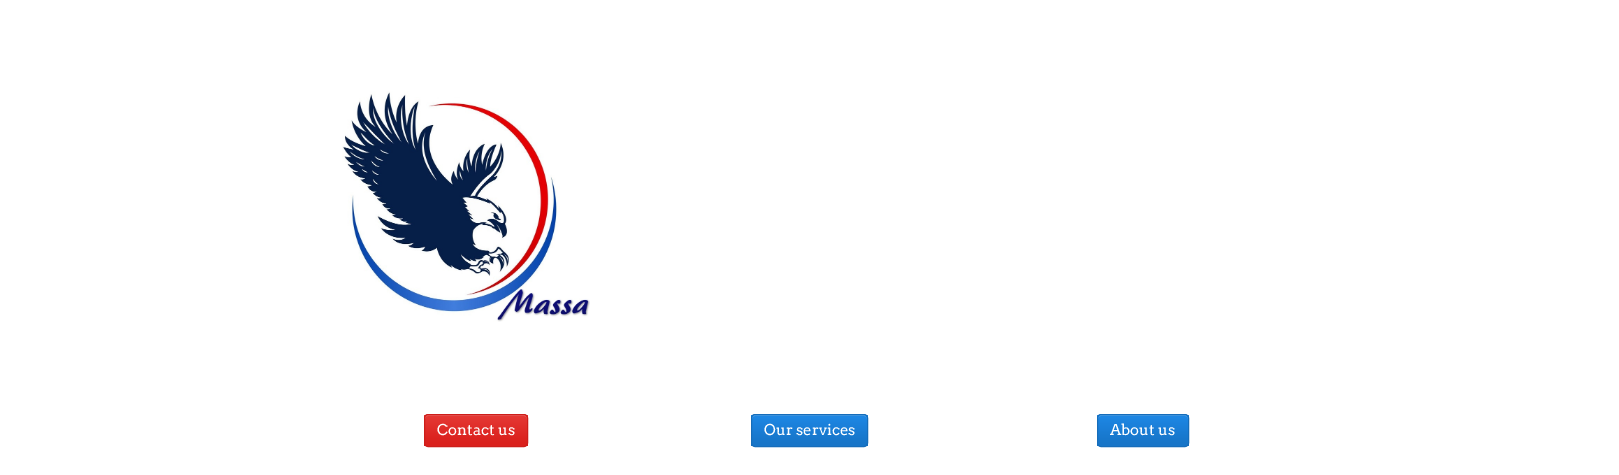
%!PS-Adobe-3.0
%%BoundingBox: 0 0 1619 475
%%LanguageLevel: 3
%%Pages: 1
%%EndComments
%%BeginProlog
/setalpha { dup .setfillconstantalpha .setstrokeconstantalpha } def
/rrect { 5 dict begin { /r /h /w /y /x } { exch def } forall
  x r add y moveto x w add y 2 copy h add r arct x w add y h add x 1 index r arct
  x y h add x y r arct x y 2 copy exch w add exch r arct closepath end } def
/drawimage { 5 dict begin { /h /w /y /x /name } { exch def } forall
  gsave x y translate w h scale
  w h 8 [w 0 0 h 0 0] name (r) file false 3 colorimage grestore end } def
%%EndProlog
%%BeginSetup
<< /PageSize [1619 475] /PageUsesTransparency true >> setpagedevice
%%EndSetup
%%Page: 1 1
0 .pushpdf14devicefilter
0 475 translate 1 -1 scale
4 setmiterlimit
1 setgray
0 0 1619 475 rectfill
(images/1.raw) 342 91 248 231 drawimage
gsave
424 414 104 33 4 rrect clip newpath
gsave newpath 424 415 moveto 528 415 lineto 528 446 lineto 424 446 lineto closepath clip newpath
<< /ShadingType 2 /ColorSpace /DeviceRGB /Coords [476 415 476 446] /Extend [true true] /Function << /FunctionType 3 /Domain [0 1] /Functions [<< /FunctionType 2 /Domain [0 1] /C0 [0.898 0.224 0.208] /C1 [0.855 0.125 0.11] /N 1 >> << /FunctionType 2 /Domain [0 1] /C0 [0.855 0.125 0.11] /C1 [0.855 0.125 0.11] /N 1 >>] /Bounds [0.9] /Encode [0 1 0 1] >> >> shfill grestore
grestore
0.2 setalpha
newpath 428 416 moveto 524 416 lineto 526 416 527 417 527 419 curveto 527 411 511 415 508 415 curveto 444 415 lineto 441 415 425 411 425 419 curveto 425 417 426 416 428 416 curveto closepath fill
1 setalpha
0.804 0.118 0.102 setrgbcolor
424.5 414.5 103 32 3.5 rrect stroke
gsave
751 414 117 33 4 rrect clip newpath
gsave newpath 751 415 moveto 868 415 lineto 868 446 lineto 751 446 lineto closepath clip newpath
<< /ShadingType 2 /ColorSpace /DeviceRGB /Coords [810 415 810 446] /Extend [true true] /Function << /FunctionType 3 /Domain [0 1] /Functions [<< /FunctionType 2 /Domain [0 1] /C0 [0.118 0.533 0.898] /C1 [0.09 0.459 0.784] /N 1 >> << /FunctionType 2 /Domain [0 1] /C0 [0.09 0.459 0.784] /C1 [0.09 0.459 0.784] /N 1 >>] /Bounds [0.9] /Encode [0 1 0 1] >> >> shfill grestore
grestore
0.2 setalpha
1 setgray
newpath 755 416 moveto 864 416 lineto 866 416 867 417 867 419 curveto 867 417 866 415 864 415 curveto 773 415 lineto 772 415 752 410 752 419 curveto 752 417 753 416 755 416 curveto closepath fill
1 setalpha
0.086 0.427 0.729 setrgbcolor
751.5 414.5 116 32 3.5 rrect stroke
gsave
1097 414 92 33 4 rrect clip newpath
gsave newpath 1097 415 moveto 1189 415 lineto 1189 446 lineto 1097 446 lineto closepath clip newpath
<< /ShadingType 2 /ColorSpace /DeviceRGB /Coords [1143 415 1143 446] /Extend [true true] /Function << /FunctionType 3 /Domain [0 1] /Functions [<< /FunctionType 2 /Domain [0 1] /C0 [0.118 0.533 0.898] /C1 [0.09 0.459 0.784] /N 1 >> << /FunctionType 2 /Domain [0 1] /C0 [0.09 0.459 0.784] /C1 [0.09 0.459 0.784] /N 1 >>] /Bounds [0.9] /Encode [0 1 0 1] >> >> shfill grestore
grestore
0.2 setalpha
1 setgray
newpath 1101 416 moveto 1185 416 lineto 1187 416 1188 417 1188 419 curveto 1188 411 1175 415 1171 415 curveto 1115 415 lineto 1111 415 1098 411 1098 419 curveto 1098 417 1099 416 1101 416 curveto closepath fill
1 setalpha
0.086 0.427 0.729 setrgbcolor
1097.5 414.5 91 32 3.5 rrect stroke
/Arvo-Regular [15 0 0 -15 0 0] selectfont
1 setgray
437 435 moveto (Contact us) show
764 435 moveto (Our services) show
1110 435 moveto (About us) show
.poppdf14devicefilter showpage
%%EOF
